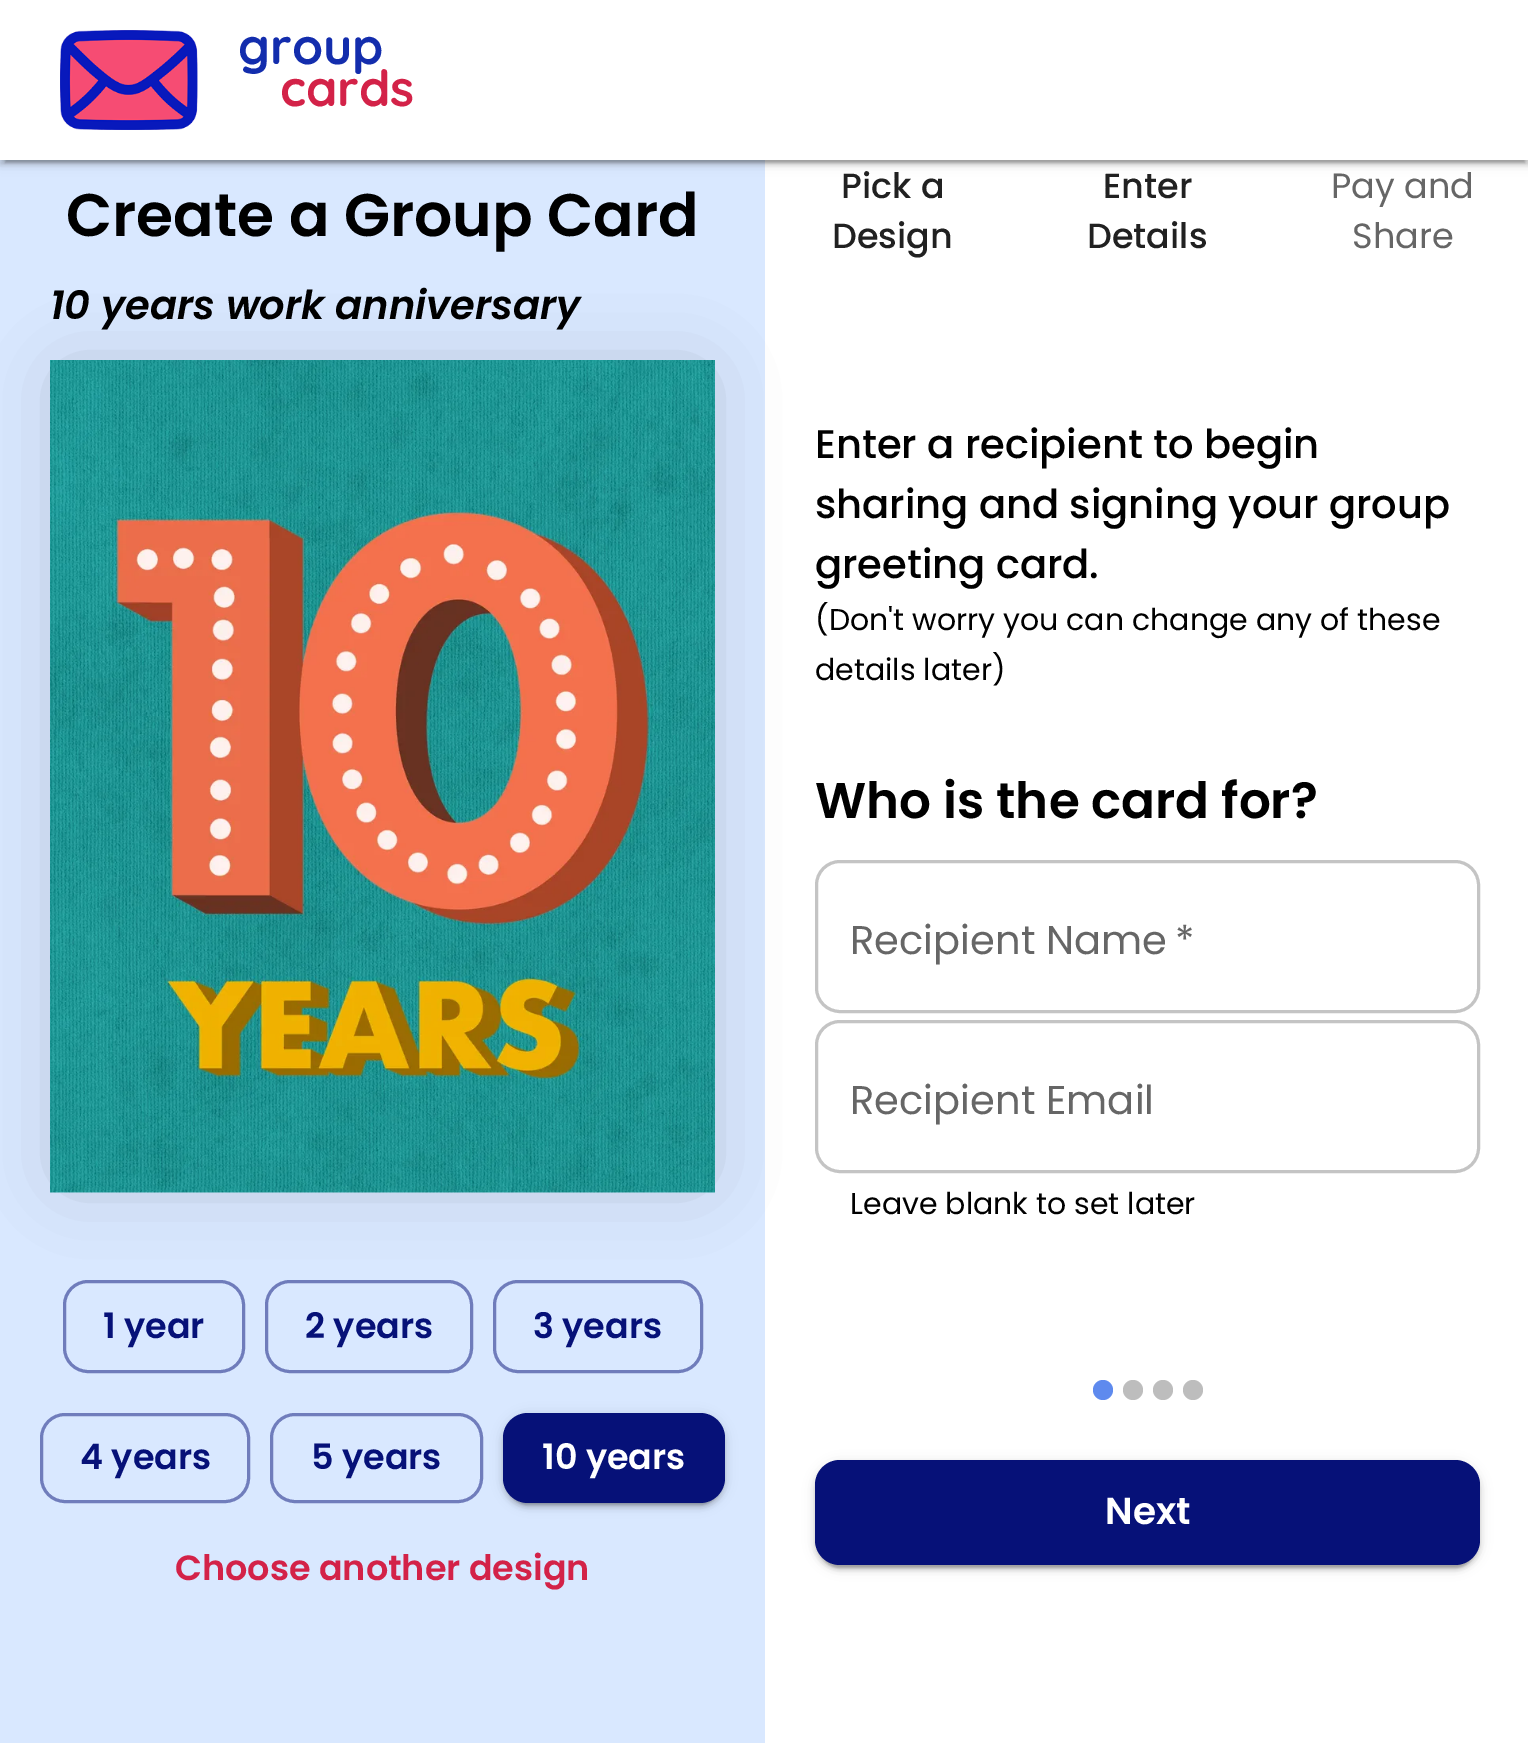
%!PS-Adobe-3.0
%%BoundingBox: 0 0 1528 1743
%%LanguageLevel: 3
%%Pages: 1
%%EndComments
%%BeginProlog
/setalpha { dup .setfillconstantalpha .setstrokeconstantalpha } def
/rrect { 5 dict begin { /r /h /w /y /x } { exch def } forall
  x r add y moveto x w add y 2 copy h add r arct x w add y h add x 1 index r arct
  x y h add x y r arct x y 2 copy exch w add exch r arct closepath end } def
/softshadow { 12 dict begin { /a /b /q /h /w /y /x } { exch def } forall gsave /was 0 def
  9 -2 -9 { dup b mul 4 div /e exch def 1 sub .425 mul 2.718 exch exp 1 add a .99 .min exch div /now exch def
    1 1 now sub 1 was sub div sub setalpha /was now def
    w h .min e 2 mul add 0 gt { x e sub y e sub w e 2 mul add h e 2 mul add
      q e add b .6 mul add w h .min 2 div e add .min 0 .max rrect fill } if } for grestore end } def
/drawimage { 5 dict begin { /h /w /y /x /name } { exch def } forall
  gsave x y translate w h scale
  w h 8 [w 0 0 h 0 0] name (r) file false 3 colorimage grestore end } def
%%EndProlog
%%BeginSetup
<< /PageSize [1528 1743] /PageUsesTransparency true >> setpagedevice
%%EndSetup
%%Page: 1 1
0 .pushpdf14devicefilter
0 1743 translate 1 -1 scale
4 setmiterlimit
1 setgray
0 0 1528 1743 rectfill
0.851 0.91 1 setrgbcolor
0 160 765 1583 rectfill
0 setgray
0 3 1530 160 0 6 0.12 softshadow
0 5 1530 160 0 2.5 0.14 softshadow
5 13 1520 150 0 1 0.2 softshadow
1 setgray
0 0 1528 160 rectfill
(images/1.raw) 60 30 138 100 drawimage
0 setgray
68 378 630 797 0 37.5 0.2 softshadow
(images/2.raw) 50 360 665 833 drawimage
0.435 0.486 0.733 setrgbcolor
3 setlinewidth
64.5 1281.5 179 90 23.5 rrect stroke
266.5 1281.5 205 90 23.5 rrect stroke
494.5 1281.5 207 90 23.5 rrect stroke
0.439 0.49 0.737 setrgbcolor
41.5 1414.5 207 87 23.5 rrect stroke
271.5 1414.5 210 87 23.5 rrect stroke
0 setgray
503 1415 222 90 25 6 0.12 softshadow
503 1418 222 90 25 2.5 0.14 softshadow
508 1425 212 80 20 1 0.2 softshadow
0.024 0.067 0.471 setrgbcolor
503 1413 222 90 25 rrect fill
0.769 setgray
816.5 861.5 662 150 23.5 rrect stroke
816.5 1021.5 662 150 23.5 rrect stroke
0.369 0.541 0.933 setrgbcolor
newpath 1103 1390 10 0 360 arc closepath fill
0.741 setgray
newpath 1133 1390 10 0 360 arc closepath fill
newpath 1163 1390 10 0 360 arc closepath fill
newpath 1193 1390 10 0 360 arc closepath fill
0 setgray
815 1463 665 105 25 6 0.12 softshadow
815 1465 665 105 25 2.5 0.14 softshadow
820 1473 655 95 20 1 0.2 softshadow
0.024 0.067 0.471 setrgbcolor
815 1460 665 105 25 rrect fill
/Quicksand-Bold [50 0 0 -50 0 0] selectfont
0.075 0.176 0.678 setrgbcolor
238 64 moveto (group) show
0.827 0.133 0.282 setrgbcolor
280 106 moveto (cards) show
/Poppins-SemiBold [60 0 0 -60 0 0] selectfont
0 setgray
66 236 moveto (Create a Group Card) show
/Poppins-SemiBoldItalic [40 0 0 -40 0 0] selectfont
50 319 moveto (10 years work anniversary) show
/Poppins-SemiBold [35 0 0 -35 0 0] selectfont
0.024 0.067 0.471 setrgbcolor
103 1338 moveto (1 year) show
305 1338 moveto (2 years) show
533 1338 moveto (3 years) show
80 1469 moveto (4 years) show
311 1469 moveto (5 years) show
1 setgray
542 1469 moveto (10 years) show
0.827 0.133 0.282 setrgbcolor
175 1580 moveto (Choose another design) show
/Poppins-Medium [35 0 0 -35 0 0] selectfont
0.129 setgray
841 198 moveto (Pick a) show
832 248 moveto (Design) show
1103 198 moveto (Enter) show
1087 248 moveto (Details) show
/Poppins-Regular [35 0 0 -35 0 0] selectfont
0.4 setgray
1331 198 moveto (Pay and) show
1352 248 moveto (Share) show
/Poppins-Medium [40 0 0 -40 0 0] selectfont
0 setgray
815 458 moveto (Enter a recipient to begin) show
815 518 moveto (sharing and signing your group) show
815 578 moveto (greeting card.) show
/Poppins-Regular [30 0 0 -30 0 0] selectfont
815 630 moveto (\(Don't worry you can change any of these) show
815 680 moveto (details later\)) show
/Poppins-SemiBold [50 0 0 -50 0 0] selectfont
815 818 moveto (Who is the card for?) show
/Poppins-Regular [40 0 0 -40 0 0] selectfont
0.4 setgray
850 954 moveto (Recipient Name) show
1175 954 moveto (*) show
850 1114 moveto (Recipient Email) show
/Poppins-Regular [30 0 0 -30 0 0] selectfont
0 setgray
850 1214 moveto (Leave blank to set later) show
/Poppins-SemiBold [37.5 0 0 -37.5 0 0] selectfont
1 setgray
1105 1524 moveto (Next) show
.poppdf14devicefilter showpage
%%EOF
